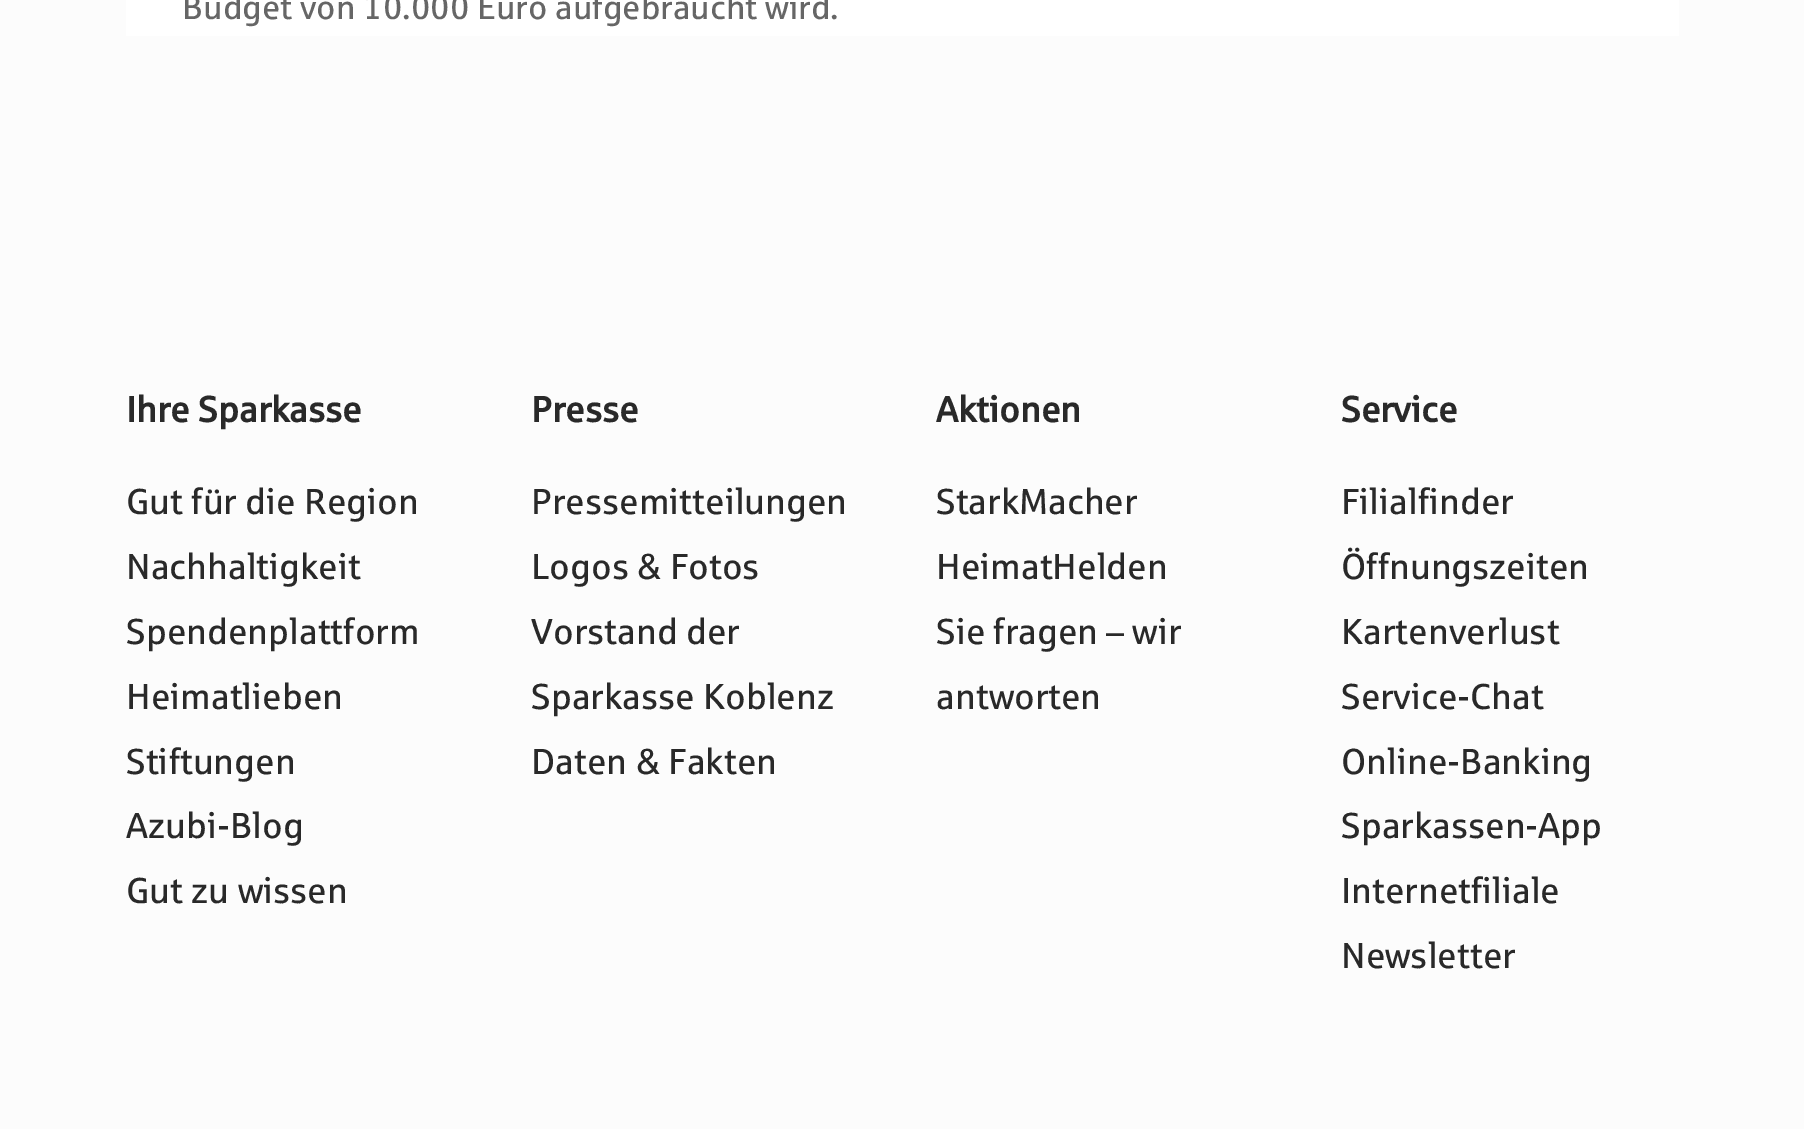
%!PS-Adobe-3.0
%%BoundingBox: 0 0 1804 1129
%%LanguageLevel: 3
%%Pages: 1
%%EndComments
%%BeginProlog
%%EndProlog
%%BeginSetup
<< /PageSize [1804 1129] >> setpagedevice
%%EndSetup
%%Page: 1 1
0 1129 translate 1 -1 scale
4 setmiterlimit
0.988 setgray
0 0 1804 1129 rectfill
1 setgray
126 0 1553 36 rectfill
/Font-Regular [33.75 0 0 -33.75 0 0] selectfont
0.4 setgray
182 19 moveto (Budget von 10.000 Euro aufgebraucht wird.) show
/Font-Bold [36 0 0 -36 0 0] selectfont
0.161 setgray
126 422 moveto (Ihre Sparkasse) show
/Font-Regular [36 0 0 -36 0 0] selectfont
126 514 moveto (Gut für die Region) show
126 579 moveto (Nachhaltigkeit) show
126 644 moveto (Spendenplattform) show
126 709 moveto (Heimatlieben) show
126 774 moveto (Stiftungen) show
126 838 moveto (Azubi-Blog) show
126 903 moveto (Gut zu wissen) show
/Font-Bold [36 0 0 -36 0 0] selectfont
531 422 moveto (Presse) show
/Font-Regular [36 0 0 -36 0 0] selectfont
531 514 moveto (Pressemitteilungen) show
531 579 moveto (Logos & Fotos) show
531 644 moveto (Vorstand der) show
531 709 moveto (Sparkasse Koblenz) show
531 774 moveto (Daten & Fakten) show
/Font-Bold [36 0 0 -36 0 0] selectfont
936 422 moveto (Aktionen) show
/Font-Regular [36 0 0 -36 0 0] selectfont
936 514 moveto (StarkMacher) show
936 579 moveto (HeimatHelden) show
936 644 moveto (Sie fragen – wir) show
936 709 moveto (antworten) show
/Font-Bold [36 0 0 -36 0 0] selectfont
1341 422 moveto (Service) show
/Font-Regular [36 0 0 -36 0 0] selectfont
1341 514 moveto (Filialfinder) show
1341 579 moveto (Öffnungszeiten) show
1341 644 moveto (Kartenverlust) show
1341 709 moveto (Service-Chat) show
1341 774 moveto (Online-Banking) show
1341 838 moveto (Sparkassen-App) show
1341 903 moveto (Internetfiliale) show
1341 968 moveto (Newsletter) show
showpage
%%EOF
